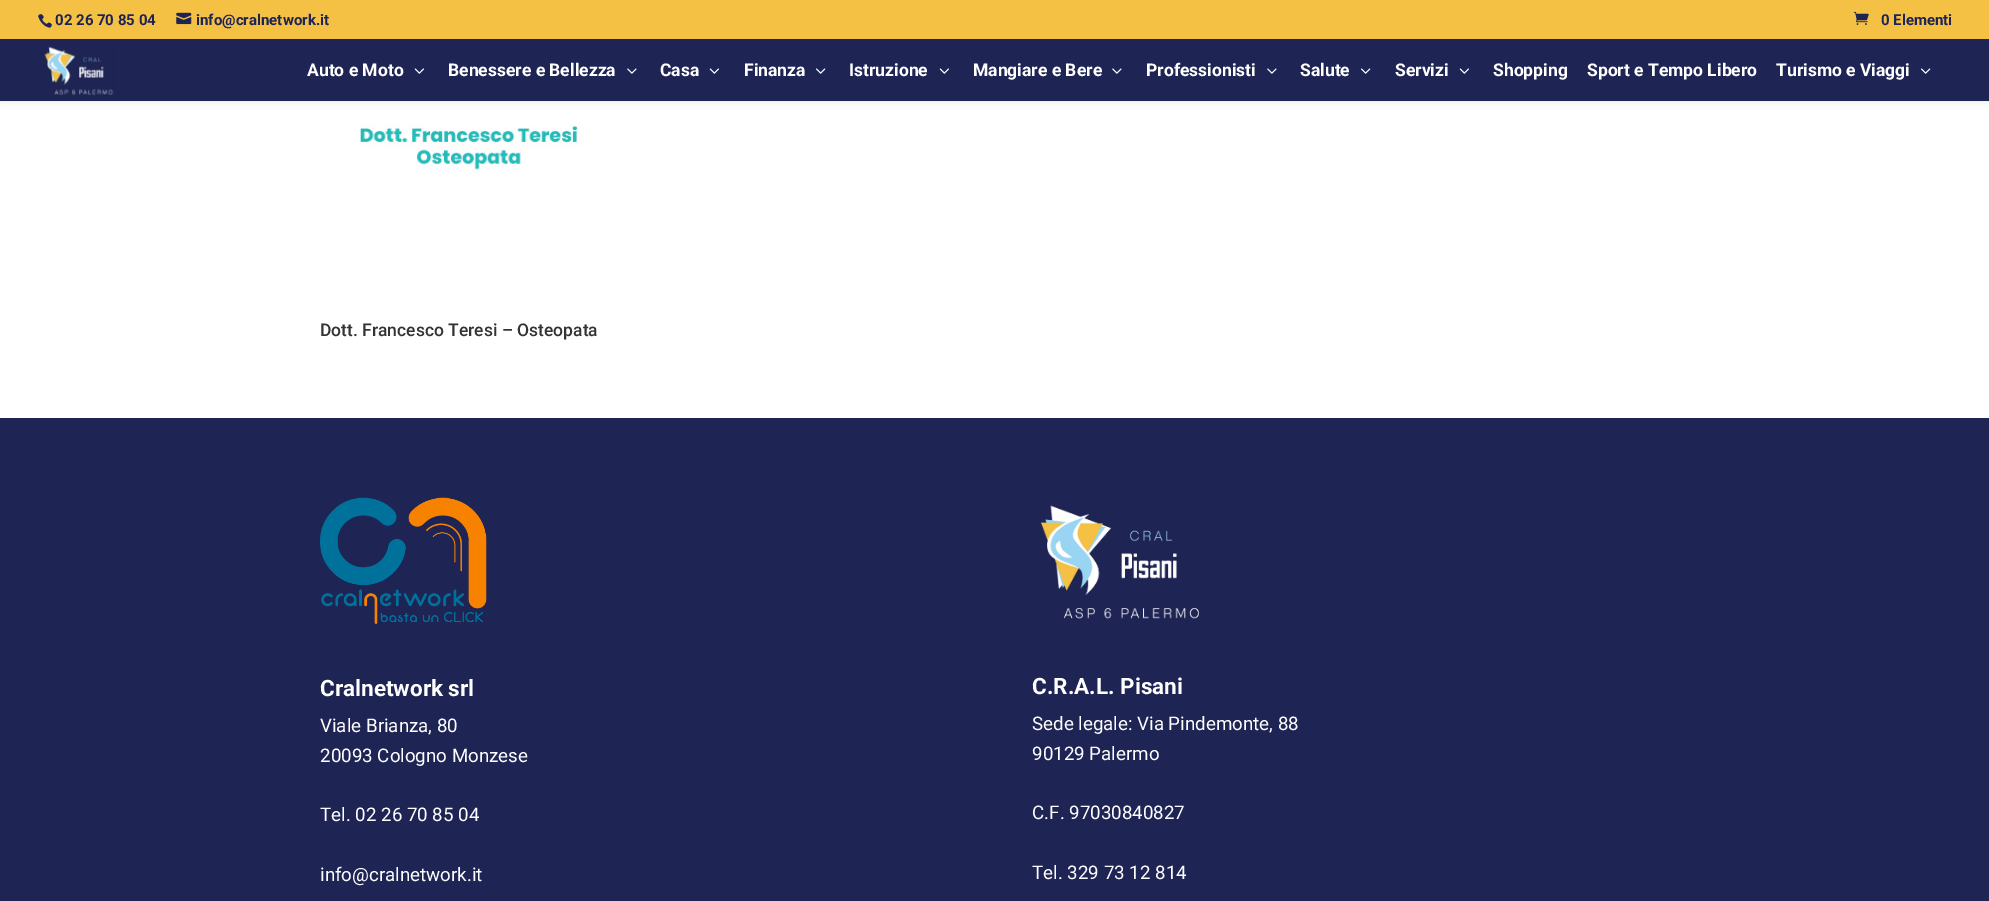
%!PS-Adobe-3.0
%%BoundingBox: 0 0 1989 901
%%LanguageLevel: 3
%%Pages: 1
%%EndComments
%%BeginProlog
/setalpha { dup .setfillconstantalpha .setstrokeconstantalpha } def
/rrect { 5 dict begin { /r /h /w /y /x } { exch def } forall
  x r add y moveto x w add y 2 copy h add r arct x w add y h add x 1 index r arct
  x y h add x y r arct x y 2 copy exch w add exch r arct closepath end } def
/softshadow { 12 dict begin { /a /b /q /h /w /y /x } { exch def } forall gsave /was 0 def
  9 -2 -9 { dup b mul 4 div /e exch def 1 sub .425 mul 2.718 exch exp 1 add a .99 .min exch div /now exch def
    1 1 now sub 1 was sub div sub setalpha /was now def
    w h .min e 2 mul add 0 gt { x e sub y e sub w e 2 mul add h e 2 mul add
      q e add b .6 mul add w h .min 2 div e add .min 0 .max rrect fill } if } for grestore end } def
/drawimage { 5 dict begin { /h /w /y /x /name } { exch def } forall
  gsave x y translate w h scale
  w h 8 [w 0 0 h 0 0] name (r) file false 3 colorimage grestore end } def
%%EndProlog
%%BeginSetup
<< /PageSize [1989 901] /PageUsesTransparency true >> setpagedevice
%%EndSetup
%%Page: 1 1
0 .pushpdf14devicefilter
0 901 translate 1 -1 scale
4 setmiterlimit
1 setgray
0 0 1989 901 rectfill
0 setgray
0 39 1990 62 0 4.5 0.1 softshadow
0.957 0.757 0.267 setrgbcolor
0 0 1989 39 rectfill
(images/1.raw) 38 14 14 14 drawimage
(images/2.raw) 176 12 16 13 drawimage
(images/3.raw) 1853 11 16 14 drawimage
0.118 0.141 0.329 setrgbcolor
0 39 1989 62 rectfill
(images/4.raw) 44 46 70 50 drawimage
(images/5.raw) 414 68 10 6 drawimage
(images/6.raw) 627 68 10 6 drawimage
(images/5.raw) 709 68 10 6 drawimage
(images/7.raw) 816 68 10 6 drawimage
(images/5.raw) 939 68 10 6 drawimage
(images/6.raw) 1112 68 10 6 drawimage
(images/6.raw) 1267 68 10 6 drawimage
(images/7.raw) 1361 68 10 6 drawimage
(images/5.raw) 1459 68 10 6 drawimage
(images/7.raw) 1921 68 10 6 drawimage
(images/8.raw) 360 123 222 47 drawimage
0 418 1989 483 rectfill
(images/9.raw) 320 497 167 127 drawimage
(images/10.raw) 1041 505 158 114 drawimage
/Roboto-Bold [15 0 0 -15 0 0] selectfont
55 25 moveto (02 26 70 85 04) show
196 25 moveto (info@cralnetwork.it) show
1881 25 moveto (0 Elementi) show
/Roboto-Bold [17.5 0 0 -17.5 0 0] selectfont
1 setgray
307 76 moveto (Auto e Moto) show
448 76 moveto (Benessere e Bellezza) show
660 76 moveto (Casa) show
744 76 moveto (Finanza) show
849 76 moveto (Istruzione) show
973 76 moveto (Mangiare e Bere) show
1146 76 moveto (Professionisti) show
1300 76 moveto (Salute) show
1395 76 moveto (Servizi) show
1493 76 moveto (Shopping) show
1587 76 moveto (Sport e Tempo Libero) show
1776 76 moveto (Turismo e Viaggi) show
/Roboto-Medium [17.5 0 0 -17.5 0 0] selectfont
0.2 setgray
320 336 moveto (Dott. Francesco Teresi – Osteopata) show
/Roboto-Bold [22.5 0 0 -22.5 0 0] selectfont
1 setgray
320 696 moveto (Cralnetwork srl) show
/Roboto-Regular [18.75 0 0 -18.75 0 0] selectfont
320 732 moveto (Viale Brianza, 80) show
320 762 moveto (20093 Cologno Monzese) show
320 821 moveto (Tel. 02 26 70 85 04) show
320 881 moveto (info@cralnetwork.it) show
/Roboto-Bold [22.5 0 0 -22.5 0 0] selectfont
1032 694 moveto (C.R.A.L. Pisani) show
/Roboto-Regular [18.75 0 0 -18.75 0 0] selectfont
1032 730 moveto (Sede legale: Via Pindemonte, 88) show
1032 760 moveto (90129 Palermo) show
1032 819 moveto (C.F. 97030840827) show
1032 879 moveto (Tel. 329 73 12 814) show
.poppdf14devicefilter showpage
%%EOF
